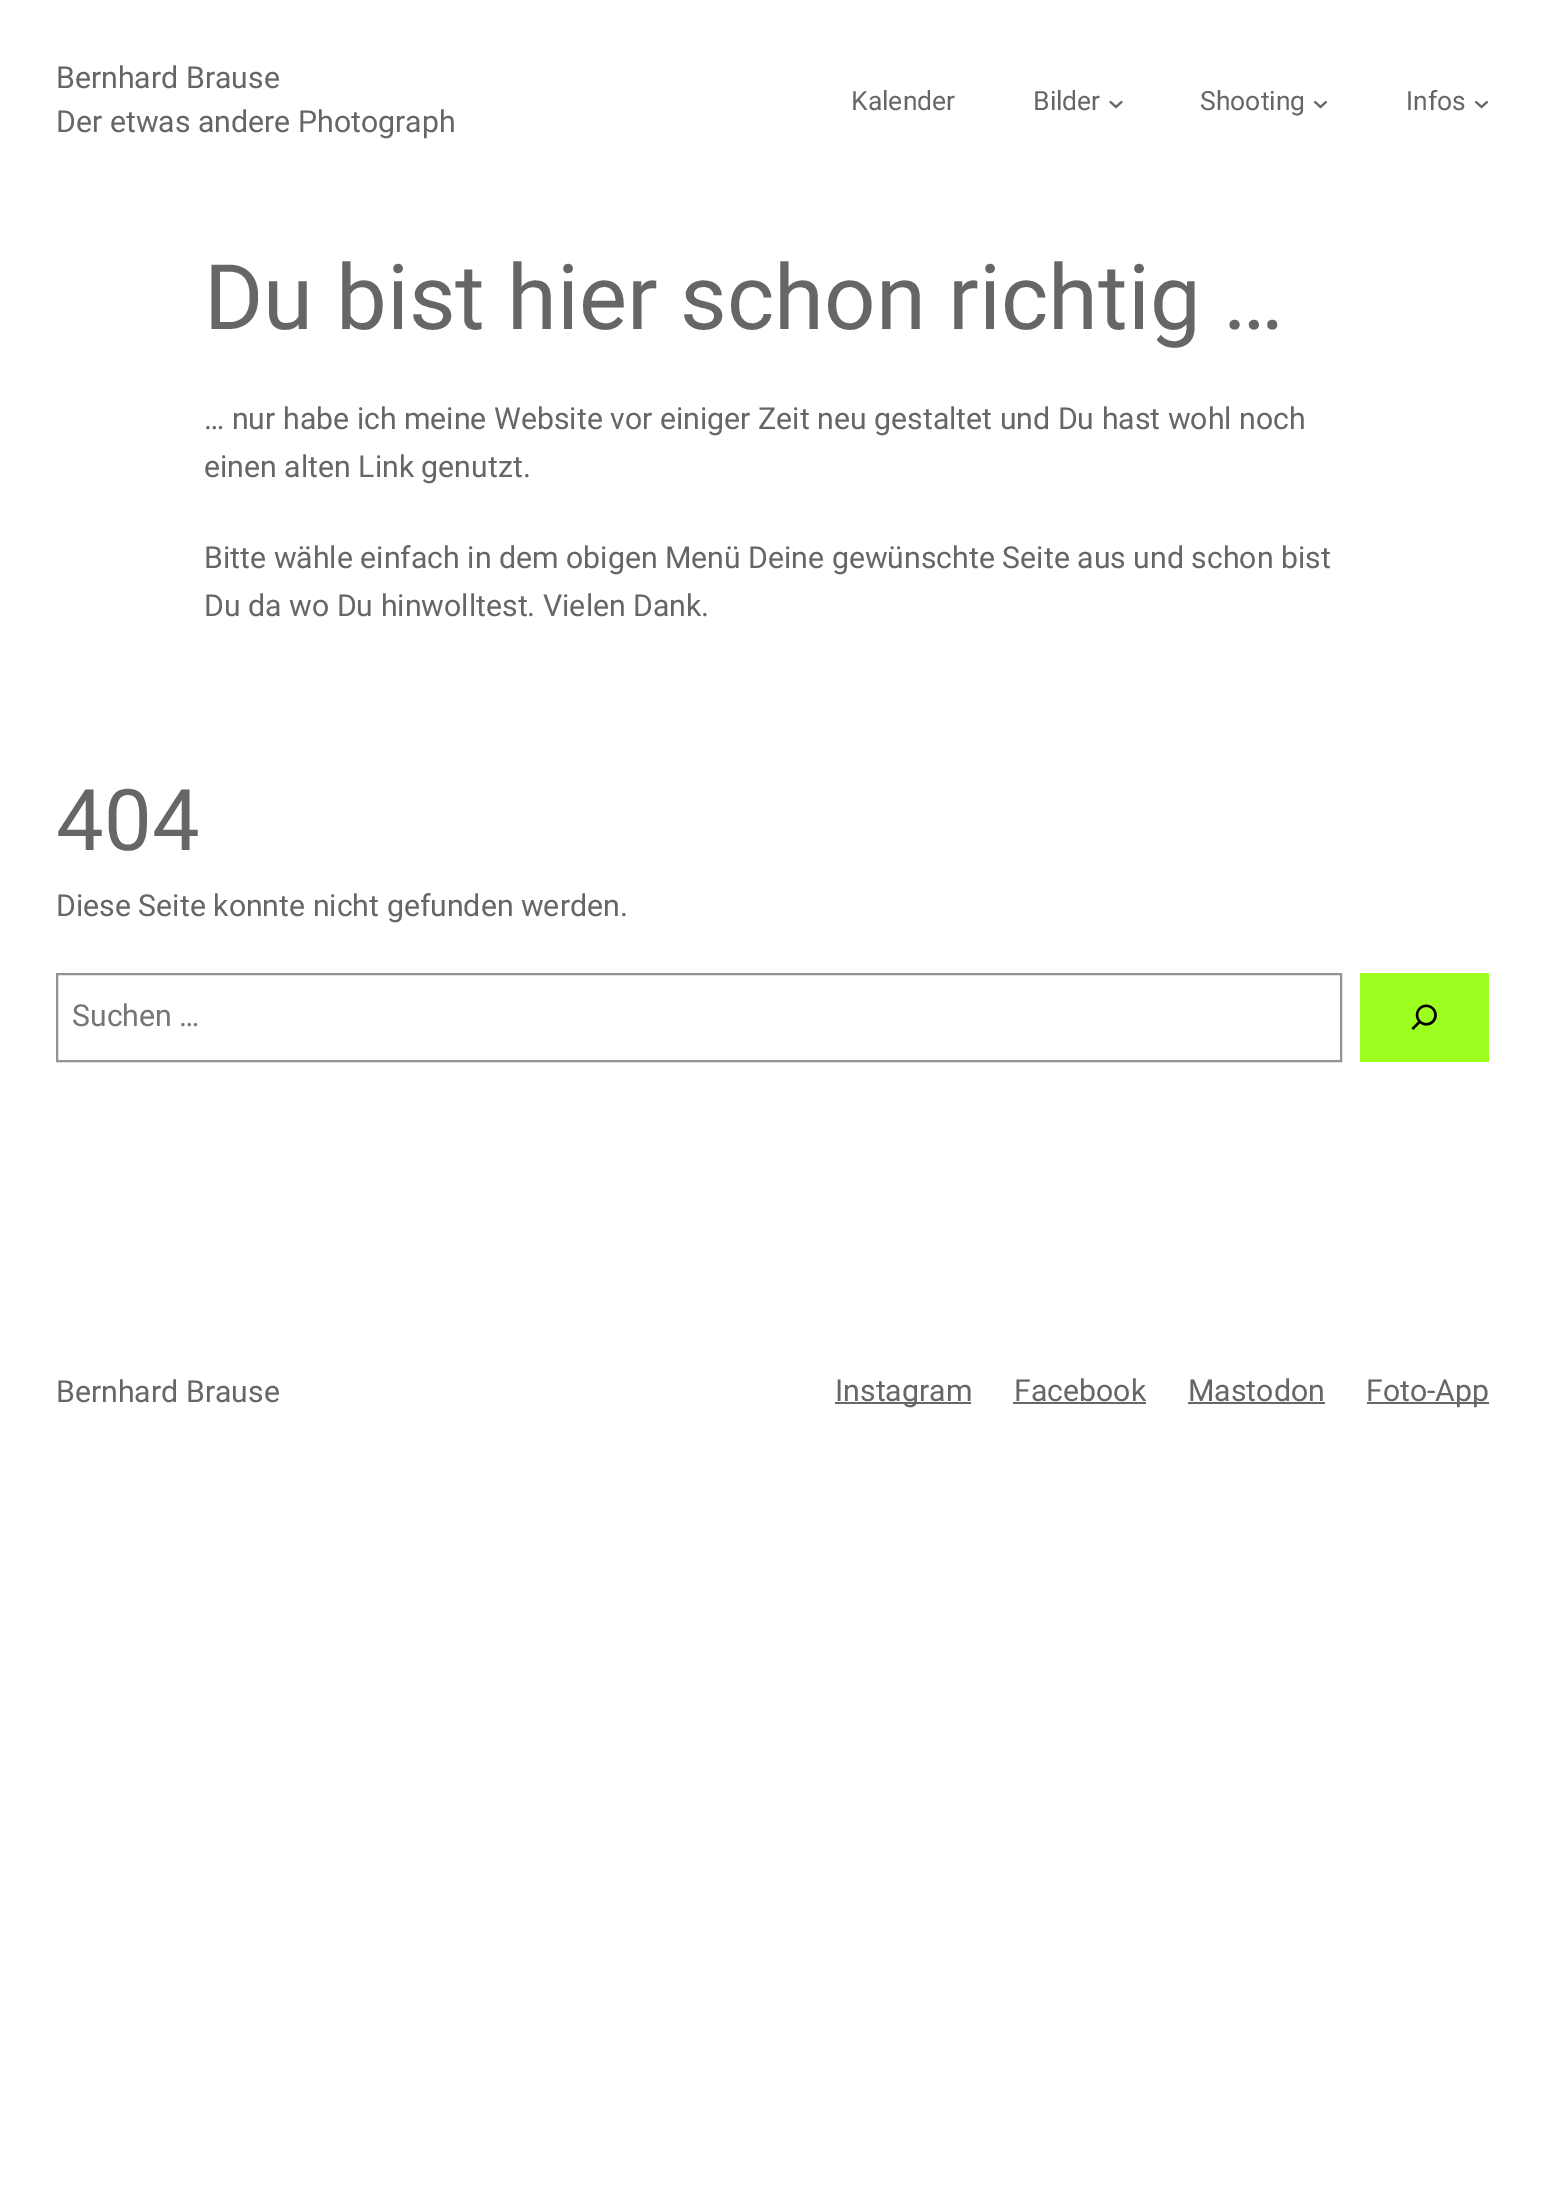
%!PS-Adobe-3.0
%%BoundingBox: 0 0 1545 2201
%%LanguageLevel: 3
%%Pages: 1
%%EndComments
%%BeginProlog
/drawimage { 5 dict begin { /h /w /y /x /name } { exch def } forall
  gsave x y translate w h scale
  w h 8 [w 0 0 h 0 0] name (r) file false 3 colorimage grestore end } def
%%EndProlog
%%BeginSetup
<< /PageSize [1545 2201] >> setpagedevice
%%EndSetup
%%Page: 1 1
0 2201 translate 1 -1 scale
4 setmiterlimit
1 setgray
0 0 1545 2201 rectfill
0.4 setgray
2 setlinewidth
newpath 1110 101.5 moveto 1116 107 lineto 1122 101.5 lineto stroke
newpath 1314.5 101.5 moveto 1320.5 107 lineto 1326.5 101.5 lineto stroke
newpath 1475.5 101.5 moveto 1481.5 107 lineto 1487.5 101.5 lineto stroke
0.58 setgray
57 974 1284 87 rectstroke
0.616 1 0.125 setrgbcolor
1360 973 129 89 rectfill
(images/1.raw) 1411 1004 26 26 drawimage
0.4 setgray
835 1402 136 2 rectfill
1013 1402 133 2 rectfill
1188 1402 137 2 rectfill
1367 1402 122 2 rectfill
/Roboto-Regular [30.25 0 0 -30.25 0 0] selectfont
56 88 moveto (Bernhard Brause) show
56 132 moveto (Der etwas andere Photograph) show
/Roboto-Regular [26.5 0 0 -26.5 0 0] selectfont
851 110 moveto (Kalender) show
1033 110 moveto (Bilder) show
1200 110 moveto (Shooting) show
1406 110 moveto (Infos) show
/Roboto-Regular [90.5 0 0 -90.5 0 0] selectfont
204 329 moveto (Du bist hier schon richtig …) show
/Roboto-Regular [30.25 0 0 -30.25 0 0] selectfont
204 429 moveto (… nur habe ich meine Website vor einiger Zeit neu gestaltet und Du hast wohl noch) show
204 477 moveto (einen alten Link genutzt.) show
204 568 moveto (Bitte wähle einfach in dem obigen Menü Deine gewünschte Seite aus und schon bist) show
204 616 moveto (Du da wo Du hinwolltest. Vielen Dank.) show
/Roboto-Regular [85 0 0 -85 0 0] selectfont
56 850 moveto (404) show
/Roboto-Regular [30.25 0 0 -30.25 0 0] selectfont
56 916 moveto (Diese Seite konnte nicht gefunden werden.) show
0.459 setgray
72 1026 moveto (Suchen …) show
0.4 setgray
56 1402 moveto (Bernhard Brause) show
835 1401 moveto (Instagram) show
1014 1401 moveto (Facebook) show
1188 1401 moveto (Mastodon) show
1366 1401 moveto (Foto-App) show
showpage
%%EOF
